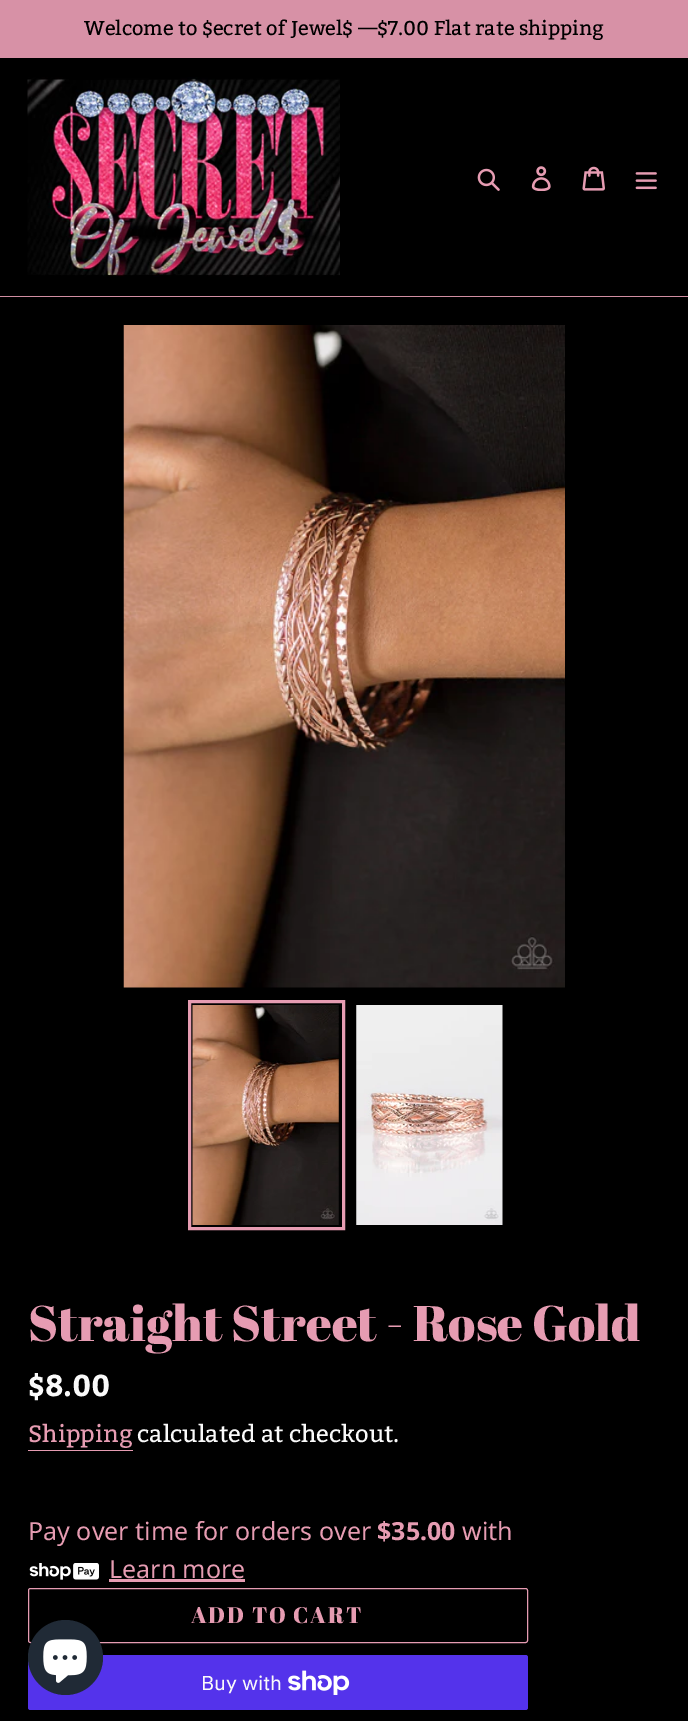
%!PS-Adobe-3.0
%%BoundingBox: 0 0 688 1721
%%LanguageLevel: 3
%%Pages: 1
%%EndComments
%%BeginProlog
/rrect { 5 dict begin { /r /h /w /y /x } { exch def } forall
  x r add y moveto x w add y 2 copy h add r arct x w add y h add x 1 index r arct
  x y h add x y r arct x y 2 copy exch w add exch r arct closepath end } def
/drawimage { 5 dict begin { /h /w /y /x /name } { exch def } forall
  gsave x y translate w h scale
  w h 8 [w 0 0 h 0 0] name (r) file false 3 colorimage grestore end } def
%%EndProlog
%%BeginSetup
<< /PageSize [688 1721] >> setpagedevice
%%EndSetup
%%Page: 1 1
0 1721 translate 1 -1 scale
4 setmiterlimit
0 setgray
0 0 688 1721 rectfill
0.843 0.569 0.651 setrgbcolor
0 0 688 58 rectfill
0.82 0.557 0.635 setrgbcolor
0 296 688 1 rectfill
(images/1.raw) 27 77 313 200 drawimage
(images/2.raw) 477 168 23 23 drawimage
(images/3.raw) 531 166 20 25 drawimage
(images/4.raw) 582 166 23 25 drawimage
(images/5.raw) 635 172 22 18 drawimage
(images/6.raw) 123 325 442 663 drawimage
0.902 0.612 0.698 setrgbcolor
3 setlinewidth
189.5 1001.5 154 227 rectstroke
(images/7.raw) 192 1005 147 220 drawimage
(images/8.raw) 356 1005 147 220 drawimage
28 1450 105 1 rectfill
(images/9.raw) 29 1563 70 17 drawimage
109 1579 136 3 rectfill
1 setlinewidth
28.5 1588.5 499 54 2 rrect stroke
0.329 0.2 0.922 setrgbcolor
28 1655 500 55 2.5 rrect fill
(images/10.raw) 288 1670 62 25 drawimage
0.125 0.165 0.212 setrgbcolor
newpath 65.5 1657.5 37.5 0 360 arc closepath fill
(images/11.raw) 43 1639 44 44 drawimage
/Bitter-Regular [20 0 0 -20 0 0] selectfont
0 setgray
84 35 moveto (Welcome to $ecret of Jewel$ —$7.00 Flat rate shipping) show
/AbrilFatface-Regular [50 0 0 -50 0 0] selectfont
0.902 0.612 0.698 setrgbcolor
28 1341 moveto (Straight Street - Rose Gold) show
/Bitter-Bold [30 0 0 -30 0 0] selectfont
0.98 setgray
28 1396 moveto ($8.00) show
/Bitter-Regular [23.75 0 0 -23.75 0 0] selectfont
0.902 0.612 0.698 setrgbcolor
28 1442 moveto (Shipping) show
0.98 setgray
137 1442 moveto (calculated at checkout.) show
/NotoSans-Regular [25 0 0 -25 0 0] selectfont
0.902 0.612 0.698 setrgbcolor
28 1540 moveto (Pay over time for orders over) show
/NotoSans-Bold [25 0 0 -25 0 0] selectfont
377 1540 moveto ($35.00) show
/NotoSans-Regular [25 0 0 -25 0 0] selectfont
462 1540 moveto (with) show
109 1578 moveto (Learn more) show
/AbrilFatface-Regular [22.5 0 0 -22.5 0 0] selectfont
191 1623 moveto 1.75 0 (ADD TO CART) ashow
/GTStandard-Regular [20 0 0 -20 0 0] selectfont
0.98 setgray
201 1690 moveto (Buy with) show
showpage
%%EOF
